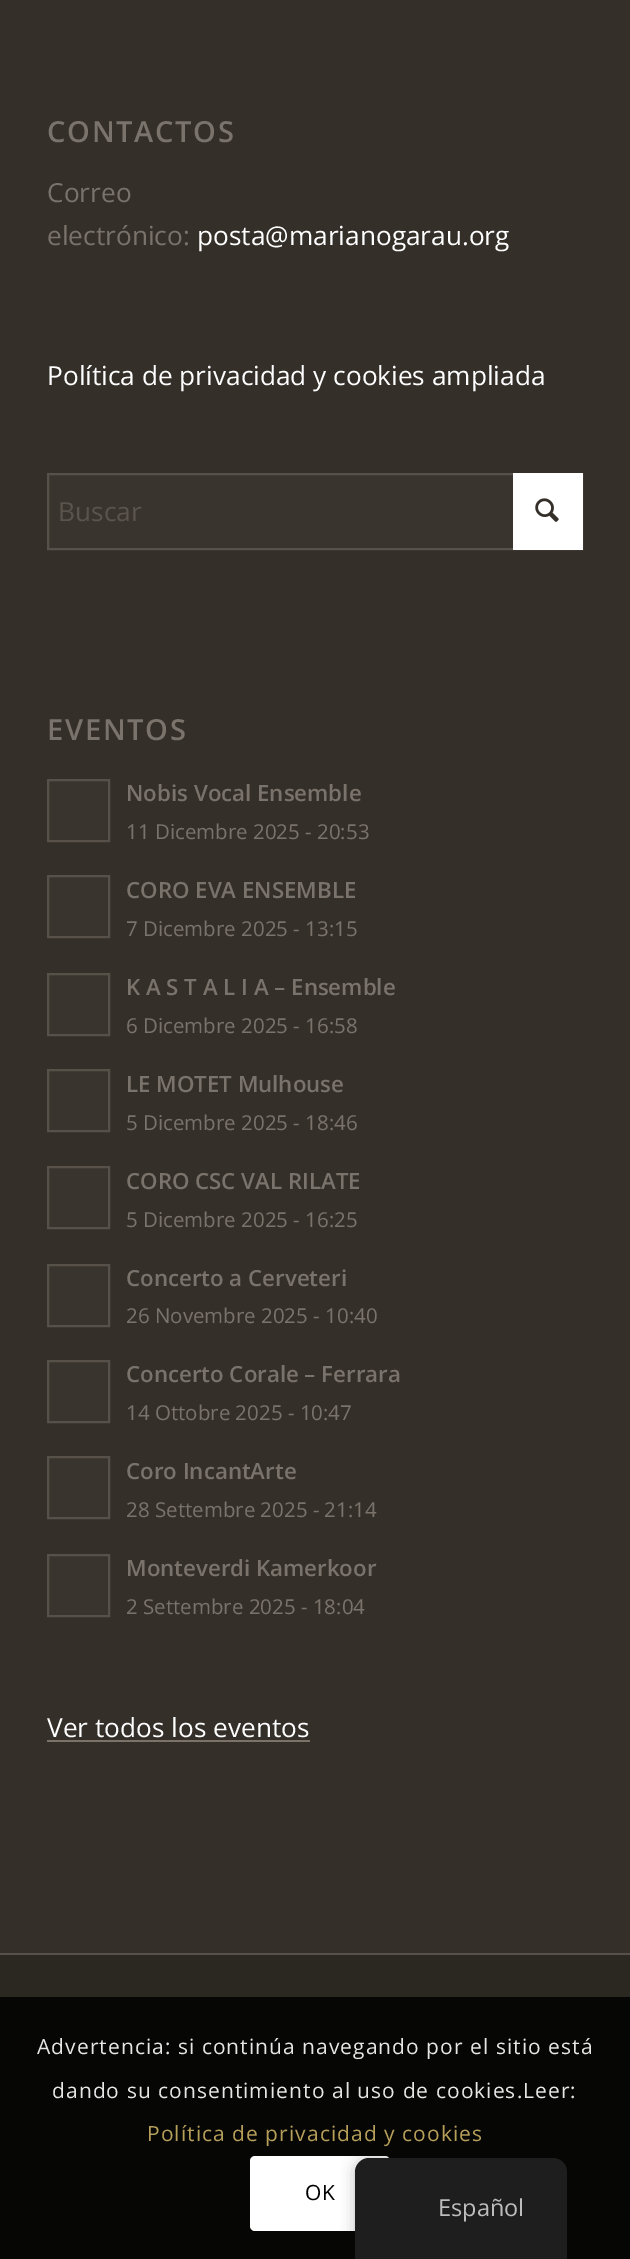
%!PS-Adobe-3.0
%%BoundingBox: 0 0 630 2259
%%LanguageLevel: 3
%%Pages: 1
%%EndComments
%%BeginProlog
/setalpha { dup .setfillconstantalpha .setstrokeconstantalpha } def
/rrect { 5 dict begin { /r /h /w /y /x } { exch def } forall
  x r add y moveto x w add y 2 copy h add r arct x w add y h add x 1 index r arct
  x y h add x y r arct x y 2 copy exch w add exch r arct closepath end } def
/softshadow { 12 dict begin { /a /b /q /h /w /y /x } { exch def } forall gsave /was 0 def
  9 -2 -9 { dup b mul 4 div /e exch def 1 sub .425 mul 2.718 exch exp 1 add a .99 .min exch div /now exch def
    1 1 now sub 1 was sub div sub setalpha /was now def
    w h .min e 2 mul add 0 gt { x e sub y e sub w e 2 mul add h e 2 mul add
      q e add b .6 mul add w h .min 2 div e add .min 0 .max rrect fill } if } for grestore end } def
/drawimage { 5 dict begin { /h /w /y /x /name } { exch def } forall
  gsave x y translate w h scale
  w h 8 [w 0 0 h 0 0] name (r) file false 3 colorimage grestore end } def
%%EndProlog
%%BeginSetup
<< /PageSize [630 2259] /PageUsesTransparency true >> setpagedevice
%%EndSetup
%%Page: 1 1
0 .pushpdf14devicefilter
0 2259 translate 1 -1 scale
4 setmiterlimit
0.204 0.184 0.161 setrgbcolor
0 0 630 2259 rectfill
0.224 0.204 0.176 setrgbcolor
49 475 464 73 rectfill
0.341 0.318 0.286 setrgbcolor
2 setlinewidth
48 474 534 75 rectstroke
1 setgray
513 473 70 77 rectfill
(images/1.raw) 535 498 24 24 drawimage
0.224 0.204 0.176 setrgbcolor
newpath 48 780 moveto 109 780 lineto 109 841 lineto 48 841 lineto closepath gsave fill grestore
0.341 0.318 0.286 setrgbcolor
stroke
0.224 0.204 0.176 setrgbcolor
newpath 48 876 moveto 109 876 lineto 109 937 lineto 48 937 lineto closepath gsave fill grestore
0.341 0.318 0.286 setrgbcolor
stroke
0.224 0.204 0.176 setrgbcolor
newpath 48 974 moveto 109 974 lineto 109 1035 lineto 48 1035 lineto closepath gsave fill grestore
0.341 0.318 0.286 setrgbcolor
stroke
0.224 0.204 0.176 setrgbcolor
newpath 48 1070 moveto 109 1070 lineto 109 1131 lineto 48 1131 lineto closepath gsave fill grestore
0.341 0.318 0.286 setrgbcolor
stroke
0.224 0.204 0.176 setrgbcolor
newpath 48 1167 moveto 109 1167 lineto 109 1228 lineto 48 1228 lineto closepath gsave fill grestore
0.341 0.318 0.286 setrgbcolor
stroke
0.224 0.204 0.176 setrgbcolor
newpath 48 1265 moveto 109 1265 lineto 109 1326 lineto 48 1326 lineto closepath gsave fill grestore
0.341 0.318 0.286 setrgbcolor
stroke
0.224 0.204 0.176 setrgbcolor
newpath 48 1361 moveto 109 1361 lineto 109 1422 lineto 48 1422 lineto closepath gsave fill grestore
0.341 0.318 0.286 setrgbcolor
stroke
0.224 0.204 0.176 setrgbcolor
newpath 48 1457 moveto 109 1457 lineto 109 1518 lineto 48 1518 lineto closepath gsave fill grestore
0.341 0.318 0.286 setrgbcolor
stroke
0.224 0.204 0.176 setrgbcolor
newpath 48 1555 moveto 109 1555 lineto 109 1616 lineto 48 1616 lineto closepath gsave fill grestore
0.341 0.318 0.286 setrgbcolor
stroke
0.482 0.451 0.408 setrgbcolor
47 1740 263 2 rectfill
0.169 0.157 0.133 setrgbcolor
0 1955 630 304 rectfill
0.341 0.318 0.286 setrgbcolor
0 1953 630 2 rectfill
0.85 setalpha
0 setgray
0 1997 630 262 rectfill
1 setalpha
1 setgray
250 2156 140 75 5 rrect fill
0 setgray
355 2158 212 101 14 7 0.25 softshadow
0.118 setgray
newpath 369 2158 moveto 553 2158 lineto 560.5 2158 567 2164.5 567 2172 curveto 567 2259 lineto 355 2259 lineto 355 2172 lineto 355 2164.5 361.5 2158 369 2158 curveto closepath fill
/OpenSans-SemiBold [29 0 0 -29 0 0] selectfont
0.478 0.451 0.42 setrgbcolor
47 142 moveto 1.75 0 (CONTACTOS) ashow
/OpenSans-Regular [26.25 0 0 -26.25 0 0] selectfont
47 202 moveto (Correo) show
47 245 moveto (electrónico:) show
1 setgray
197 245 moveto (posta@marianogarau.org) show
47 385 moveto (Política de privacidad y cookies ampliada) show
0.353 0.329 0.298 setrgbcolor
58 521 moveto (Buscar) show
/OpenSans-SemiBold [29 0 0 -29 0 0] selectfont
0.478 0.451 0.42 setrgbcolor
47 740 moveto 1.75 0 (EVENTOS) ashow
/OpenSans-SemiBold [22.25 0 0 -22.25 0 0] selectfont
126 801 moveto (Nobis Vocal Ensemble) show
/OpenSans-Regular [20.5 0 0 -20.5 0 0] selectfont
126 839 moveto (11 Dicembre 2025 - 20:53) show
/OpenSans-SemiBold [22.25 0 0 -22.25 0 0] selectfont
126 898 moveto (CORO EVA ENSEMBLE) show
/OpenSans-Regular [20.5 0 0 -20.5 0 0] selectfont
126 936 moveto (7 Dicembre 2025 - 13:15) show
/OpenSans-SemiBold [22.25 0 0 -22.25 0 0] selectfont
126 995 moveto (K A S T A L I A – Ensemble) show
/OpenSans-Regular [20.5 0 0 -20.5 0 0] selectfont
126 1033 moveto (6 Dicembre 2025 - 16:58) show
/OpenSans-SemiBold [22.25 0 0 -22.25 0 0] selectfont
126 1092 moveto (LE MOTET Mulhouse) show
/OpenSans-Regular [20.5 0 0 -20.5 0 0] selectfont
126 1130 moveto (5 Dicembre 2025 - 18:46) show
/OpenSans-SemiBold [22.25 0 0 -22.25 0 0] selectfont
126 1189 moveto (CORO CSC VAL RILATE) show
/OpenSans-Regular [20.5 0 0 -20.5 0 0] selectfont
126 1227 moveto (5 Dicembre 2025 - 16:25) show
/OpenSans-SemiBold [22.25 0 0 -22.25 0 0] selectfont
126 1286 moveto (Concerto a Cerveteri) show
/OpenSans-Regular [20.5 0 0 -20.5 0 0] selectfont
126 1323 moveto (26 Novembre 2025 - 10:40) show
/OpenSans-SemiBold [22.25 0 0 -22.25 0 0] selectfont
126 1382 moveto (Concerto Corale – Ferrara) show
/OpenSans-Regular [20.5 0 0 -20.5 0 0] selectfont
126 1420 moveto (14 Ottobre 2025 - 10:47) show
/OpenSans-SemiBold [22.25 0 0 -22.25 0 0] selectfont
126 1479 moveto (Coro IncantArte) show
/OpenSans-Regular [20.5 0 0 -20.5 0 0] selectfont
126 1517 moveto (28 Settembre 2025 - 21:14) show
/OpenSans-SemiBold [22.25 0 0 -22.25 0 0] selectfont
126 1576 moveto (Monteverdi Kamerkoor) show
/OpenSans-Regular [20.5 0 0 -20.5 0 0] selectfont
126 1614 moveto (2 Settembre 2025 - 18:04) show
/OpenSans-Regular [26.25 0 0 -26.25 0 0] selectfont
1 setgray
47 1737 moveto (Ver todos los eventos) show
/OpenSans-Regular [21 0 0 -21 0 0] selectfont
0.902 setgray
37 2054 moveto 1.05 0 (Advertencia: si continúa navegando por el sitio está) ashow
52 2098 moveto 1.05 0 (dando su consentimiento al uso de cookies.Leer:) ashow
0.714 0.624 0.349 setrgbcolor
147 2141 moveto 1.05 0 (Política de privacidad y cookies) ashow
0 setgray
305 2200 moveto 1.05 0 (OK) ashow
/OpenSans-Regular [23.5 0 0 -23.5 0 0] selectfont
0.741 setgray
438 2216 moveto (Español) show
.poppdf14devicefilter showpage
%%EOF
